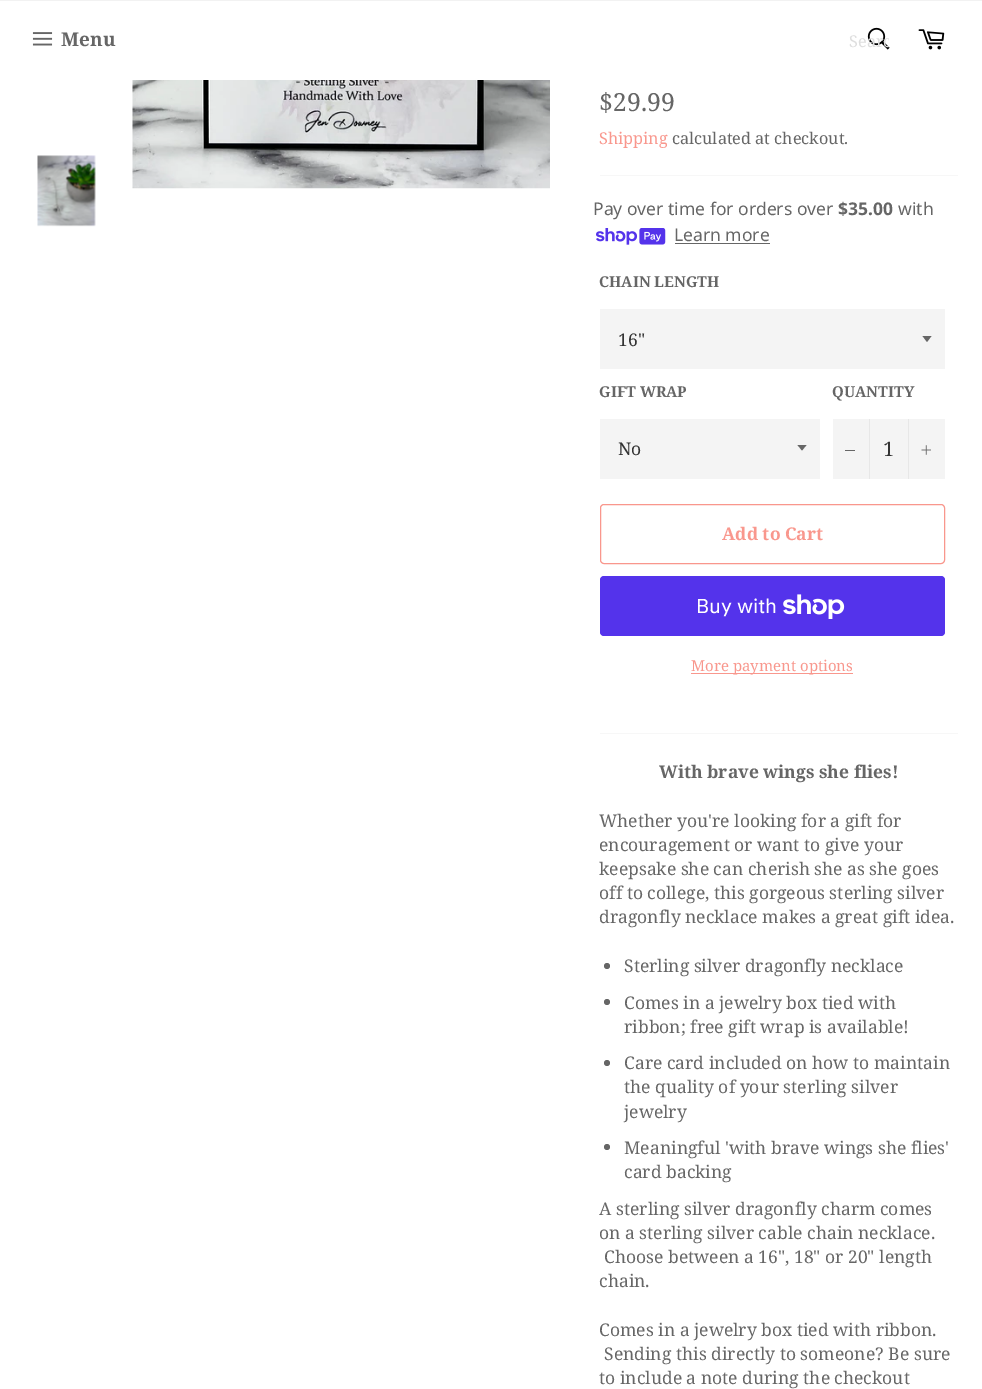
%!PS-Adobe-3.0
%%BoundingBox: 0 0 982 1389
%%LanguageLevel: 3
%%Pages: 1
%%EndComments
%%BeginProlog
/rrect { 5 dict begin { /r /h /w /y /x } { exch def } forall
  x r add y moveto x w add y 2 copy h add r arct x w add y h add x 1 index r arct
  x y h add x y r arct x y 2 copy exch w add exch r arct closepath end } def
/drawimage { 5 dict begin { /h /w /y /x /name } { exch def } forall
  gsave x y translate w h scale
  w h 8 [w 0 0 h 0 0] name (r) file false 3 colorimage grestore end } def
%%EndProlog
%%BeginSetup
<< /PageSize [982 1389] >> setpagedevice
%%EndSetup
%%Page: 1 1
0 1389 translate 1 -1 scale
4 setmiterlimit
1 setgray
0 0 982 1389 rectfill
0.949 setgray
0 0 982 1 rectfill
(images/1.raw) 32 32 21 14 drawimage
(images/2.raw) 867 27 23 23 drawimage
(images/3.raw) 918 29 27 21 drawimage
(images/4.raw) 37 155 59 72 drawimage
(images/5.raw) 132 80 418 109 drawimage
0.969 setgray
600 175 358 1 rectfill
(images/6.raw) 596 228 70 17 drawimage
0.4 setgray
675 243 95 1 rectfill
0.957 setgray
600 309 345 60 rectfill
0.4 setgray
newpath 922.5 336 moveto 927 342 lineto 931.5 336 lineto closepath fill
0.957 setgray
600 419 220 60 rectfill
0.4 setgray
newpath 797.5 445 moveto 802 450.5 lineto 806.5 445 lineto closepath fill
0.957 setgray
833 419 112 60 rectfill
0.906 setgray
869 419 1 60 rectfill
0.4 setgray
845 450 10 1 rectfill
0.906 setgray
908 419 1 60 rectfill
(images/7.raw) 921 445 10 10 drawimage
0.976 0.592 0.553 setrgbcolor
600.5 504.5 344 59 3.5 rrect stroke
0.329 0.2 0.922 setrgbcolor
600 576 345 60 4 rrect fill
(images/8.raw) 783 594 62 25 drawimage
0.976 0.592 0.553 setrgbcolor
691 673 162 1 rectfill
0.969 setgray
600 733 358 1 rectfill
0.4 setgray
newpath 607 966 3 0 360 arc closepath fill
newpath 607 1002 3 0 360 arc closepath fill
newpath 607 1063 3 0 360 arc closepath fill
newpath 607 1147 3 0 360 arc closepath fill
/NotoSerif-Bold [19 0 0 -19 0 0] selectfont
61 46 moveto (Menu) show
gsave
849 29 40 22 rectclip
/NotoSerif-Regular [16.25 0 0 -16.25 0 0] selectfont
0.871 setgray
849 47 moveto (Searc) show
grestore
/NotoSerif-Regular [25 0 0 -25 0 0] selectfont
599 111 moveto ($29.99) show
/NotoSerif-Regular [16.25 0 0 -16.25 0 0] selectfont
0.976 0.592 0.553 setrgbcolor
599 144 moveto (Shipping) show
0.4 setgray
672 144 moveto (calculated at checkout.) show
/NotoSans-Regular [17.5 0 0 -17.5 0 0] selectfont
593 215 moveto (Pay over time for orders over) show
/NotoSans-Bold [17.5 0 0 -17.5 0 0] selectfont
838 215 moveto ($35.00) show
/NotoSans-Regular [17.5 0 0 -17.5 0 0] selectfont
898 215 moveto (with) show
674 241 moveto (Learn more) show
/NotoSerif-Bold [15 0 0 -15 0 0] selectfont
599 287 moveto (CHAIN LENGTH) show
/NotoSerif-Regular [17.5 0 0 -17.5 0 0] selectfont
0.2 setgray
618 346 moveto (16") show
/NotoSerif-Bold [15 0 0 -15 0 0] selectfont
0.4 setgray
599 397 moveto (GIFT WRAP) show
/NotoSerif-Regular [17.5 0 0 -17.5 0 0] selectfont
0.2 setgray
618 455 moveto (No) show
/NotoSerif-Bold [15 0 0 -15 0 0] selectfont
0.4 setgray
832 397 moveto (QUANTITY) show
/NotoSerif-Regular [20 0 0 -20 0 0] selectfont
0.2 setgray
883 456 moveto (1) show
/NotoSerif-Bold [17.5 0 0 -17.5 0 0] selectfont
0.976 0.592 0.553 setrgbcolor
722 540 moveto (Add to Cart) show
/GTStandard-Regular [20 0 0 -20 0 0] selectfont
1 setgray
696 613 moveto (Buy with) show
/NotoSerif-Regular [15 0 0 -15 0 0] selectfont
0.976 0.592 0.553 setrgbcolor
691 671 moveto (More payment options) show
/NotoSerif-Bold [17.5 0 0 -17.5 0 0] selectfont
0.4 setgray
659 778 moveto (With brave wings she flies!) show
/NotoSerif-Regular [17.5 0 0 -17.5 0 0] selectfont
599 827 moveto (Whether you're looking for a gift for) show
599 851 moveto (encouragement or want to give your) show
599 875 moveto (keepsake she can cherish she as she goes) show
599 899 moveto (off to college, this gorgeous sterling silver) show
599 923 moveto (dragonfly necklace makes a great gift idea.) show
624 972 moveto (Sterling silver dragonfly necklace) show
624 1009 moveto (Comes in a jewelry box tied with) show
624 1033 moveto (ribbon; free gift wrap is available!) show
624 1069 moveto (Care card included on how to maintain) show
624 1093 moveto (the quality of your sterling silver) show
624 1118 moveto (jewelry) show
624 1154 moveto (Meaningful 'with brave wings she flies') show
624 1178 moveto (card backing) show
599 1215 moveto (A sterling silver dragonfly charm comes) show
599 1239 moveto (on a sterling silver cable chain necklace.) show
604 1263 moveto (Choose between a 16", 18" or 20" length) show
599 1287 moveto (chain.) show
599 1336 moveto (Comes in a jewelry box tied with ribbon.) show
604 1360 moveto (Sending this directly to someone? Be sure) show
599 1384 moveto (to include a note during the checkout) show
showpage
%%EOF
